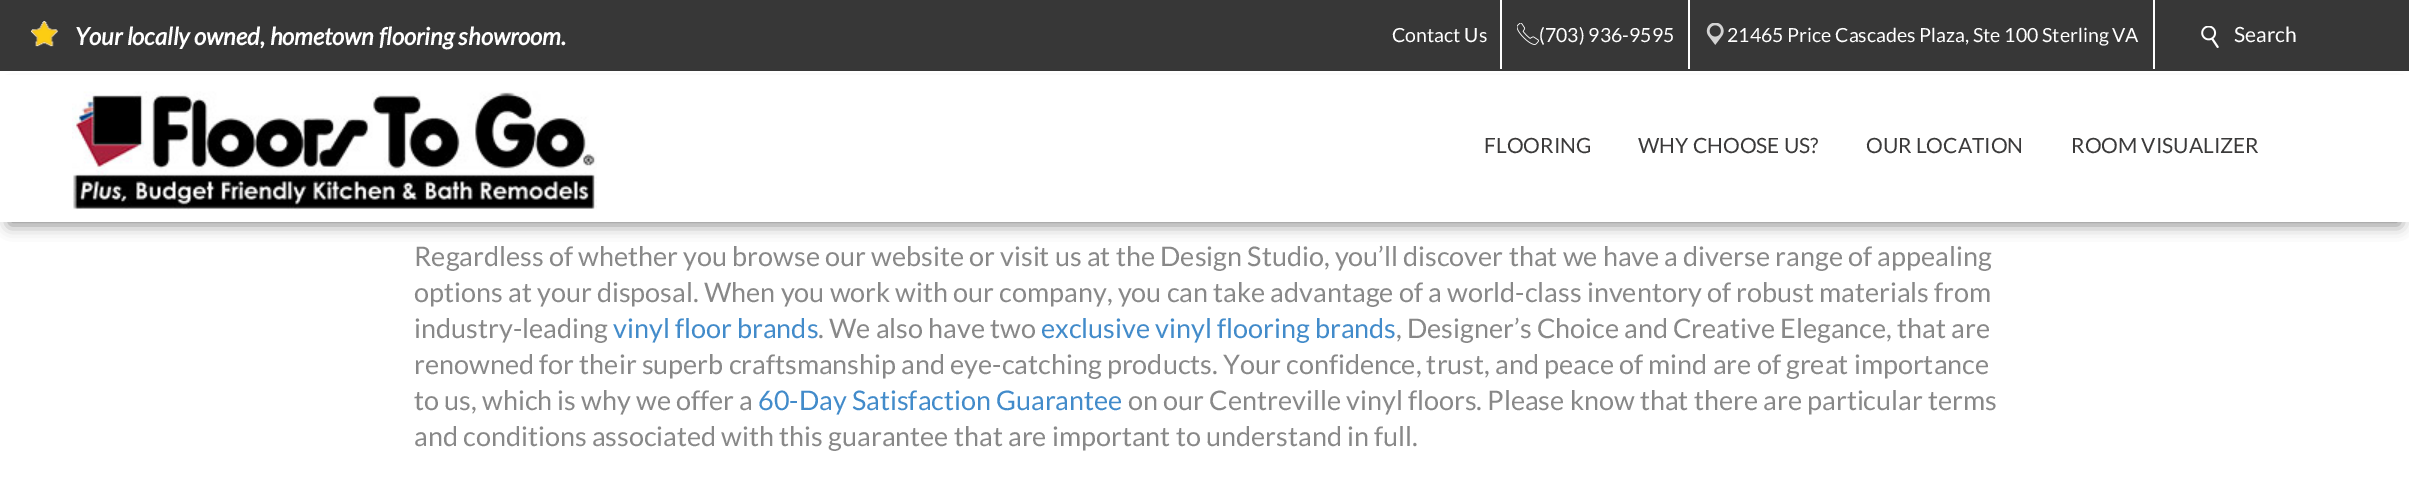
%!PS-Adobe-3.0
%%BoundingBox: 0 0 2409 501
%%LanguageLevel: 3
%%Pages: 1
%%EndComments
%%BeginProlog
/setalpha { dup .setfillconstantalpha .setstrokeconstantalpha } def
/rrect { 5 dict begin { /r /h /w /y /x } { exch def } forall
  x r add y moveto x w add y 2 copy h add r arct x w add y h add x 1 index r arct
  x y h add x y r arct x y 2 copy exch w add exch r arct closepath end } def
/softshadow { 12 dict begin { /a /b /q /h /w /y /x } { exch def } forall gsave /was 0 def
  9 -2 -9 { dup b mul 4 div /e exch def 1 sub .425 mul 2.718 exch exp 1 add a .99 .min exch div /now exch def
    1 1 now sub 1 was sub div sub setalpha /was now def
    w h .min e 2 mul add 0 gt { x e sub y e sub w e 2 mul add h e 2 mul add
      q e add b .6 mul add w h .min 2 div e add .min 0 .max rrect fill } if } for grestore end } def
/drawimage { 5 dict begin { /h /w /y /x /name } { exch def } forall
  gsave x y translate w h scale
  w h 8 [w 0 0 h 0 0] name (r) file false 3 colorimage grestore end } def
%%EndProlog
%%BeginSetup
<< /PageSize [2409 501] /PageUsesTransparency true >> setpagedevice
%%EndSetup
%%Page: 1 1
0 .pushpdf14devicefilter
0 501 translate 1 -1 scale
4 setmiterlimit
1 setgray
0 0 2409 501 rectfill
0.533 setgray
9 90 2391 135 0 7.5 1 softshadow
0.216 setgray
0 0 2409 71 rectfill
(images/1.raw) 31 21 27 26 drawimage
1 setgray
1500 0 2 69 rectfill
(images/2.raw) 1517 23 22 22 drawimage
1688 0 2 69 rectfill
(images/3.raw) 1706 23 18 22 drawimage
2153 0 2 69 rectfill
(images/4.raw) 2201 26 18 22 drawimage
0 75 2409 147 rectfill
(images/5.raw) 72 91 525 119 drawimage
/Lato-BoldItalic [24 0 0 -24 0 0] selectfont
75 45 moveto (Your locally owned, hometown flooring showroom.) show
/Lato-Regular [19.5 0 0 -19.5 0 0] selectfont
1392 42 moveto (Contact Us) show
1539 42 moveto (\(703\) 936-9595) show
1727 42 moveto (21465 Price Cascades Plaza, Ste 100 Sterling VA) show
/Lato-Regular [21 0 0 -21 0 0] selectfont
2234 42 moveto (Search) show
0.231 0.227 0.227 setrgbcolor
1484 153 moveto (FLOORING) show
1638 153 moveto (WHY CHOOSE US?) show
1866 153 moveto (OUR LOCATION) show
2071 153 moveto (ROOM VISUALIZER) show
/Lato-Regular [27 0 0 -27 0 0] selectfont
0.533 setgray
414 266 moveto (Regardless of whether you browse our website or visit us at the Design Studio, you’ll discover that we have a diverse range of appealing) show
414 302 moveto (options at your disposal. When you work with our company, you can take advantage of a world-class inventory of robust materials from) show
414 338 moveto (industry-leading) show
0.259 0.545 0.792 setrgbcolor
613 338 moveto (vinyl floor brands) show
0.533 setgray
818 338 moveto (. We also have two) show
0.259 0.545 0.792 setrgbcolor
1041 338 moveto (exclusive vinyl flooring brands) show
0.533 setgray
1396 338 moveto (, Designer’s Choice and Creative Elegance, that are) show
414 374 moveto (renowned for their superb craftsmanship and eye-catching products. Your confidence, trust, and peace of mind are of great importance) show
414 410 moveto (to us, which is why we offer a) show
0.259 0.545 0.792 setrgbcolor
758 410 moveto (60-Day Satisfaction Guarantee) show
0.533 setgray
1128 410 moveto (on our Centreville vinyl floors. Please know that there are particular terms) show
414 446 moveto (and conditions associated with this guarantee that are important to understand in full.) show
.poppdf14devicefilter showpage
%%EOF
